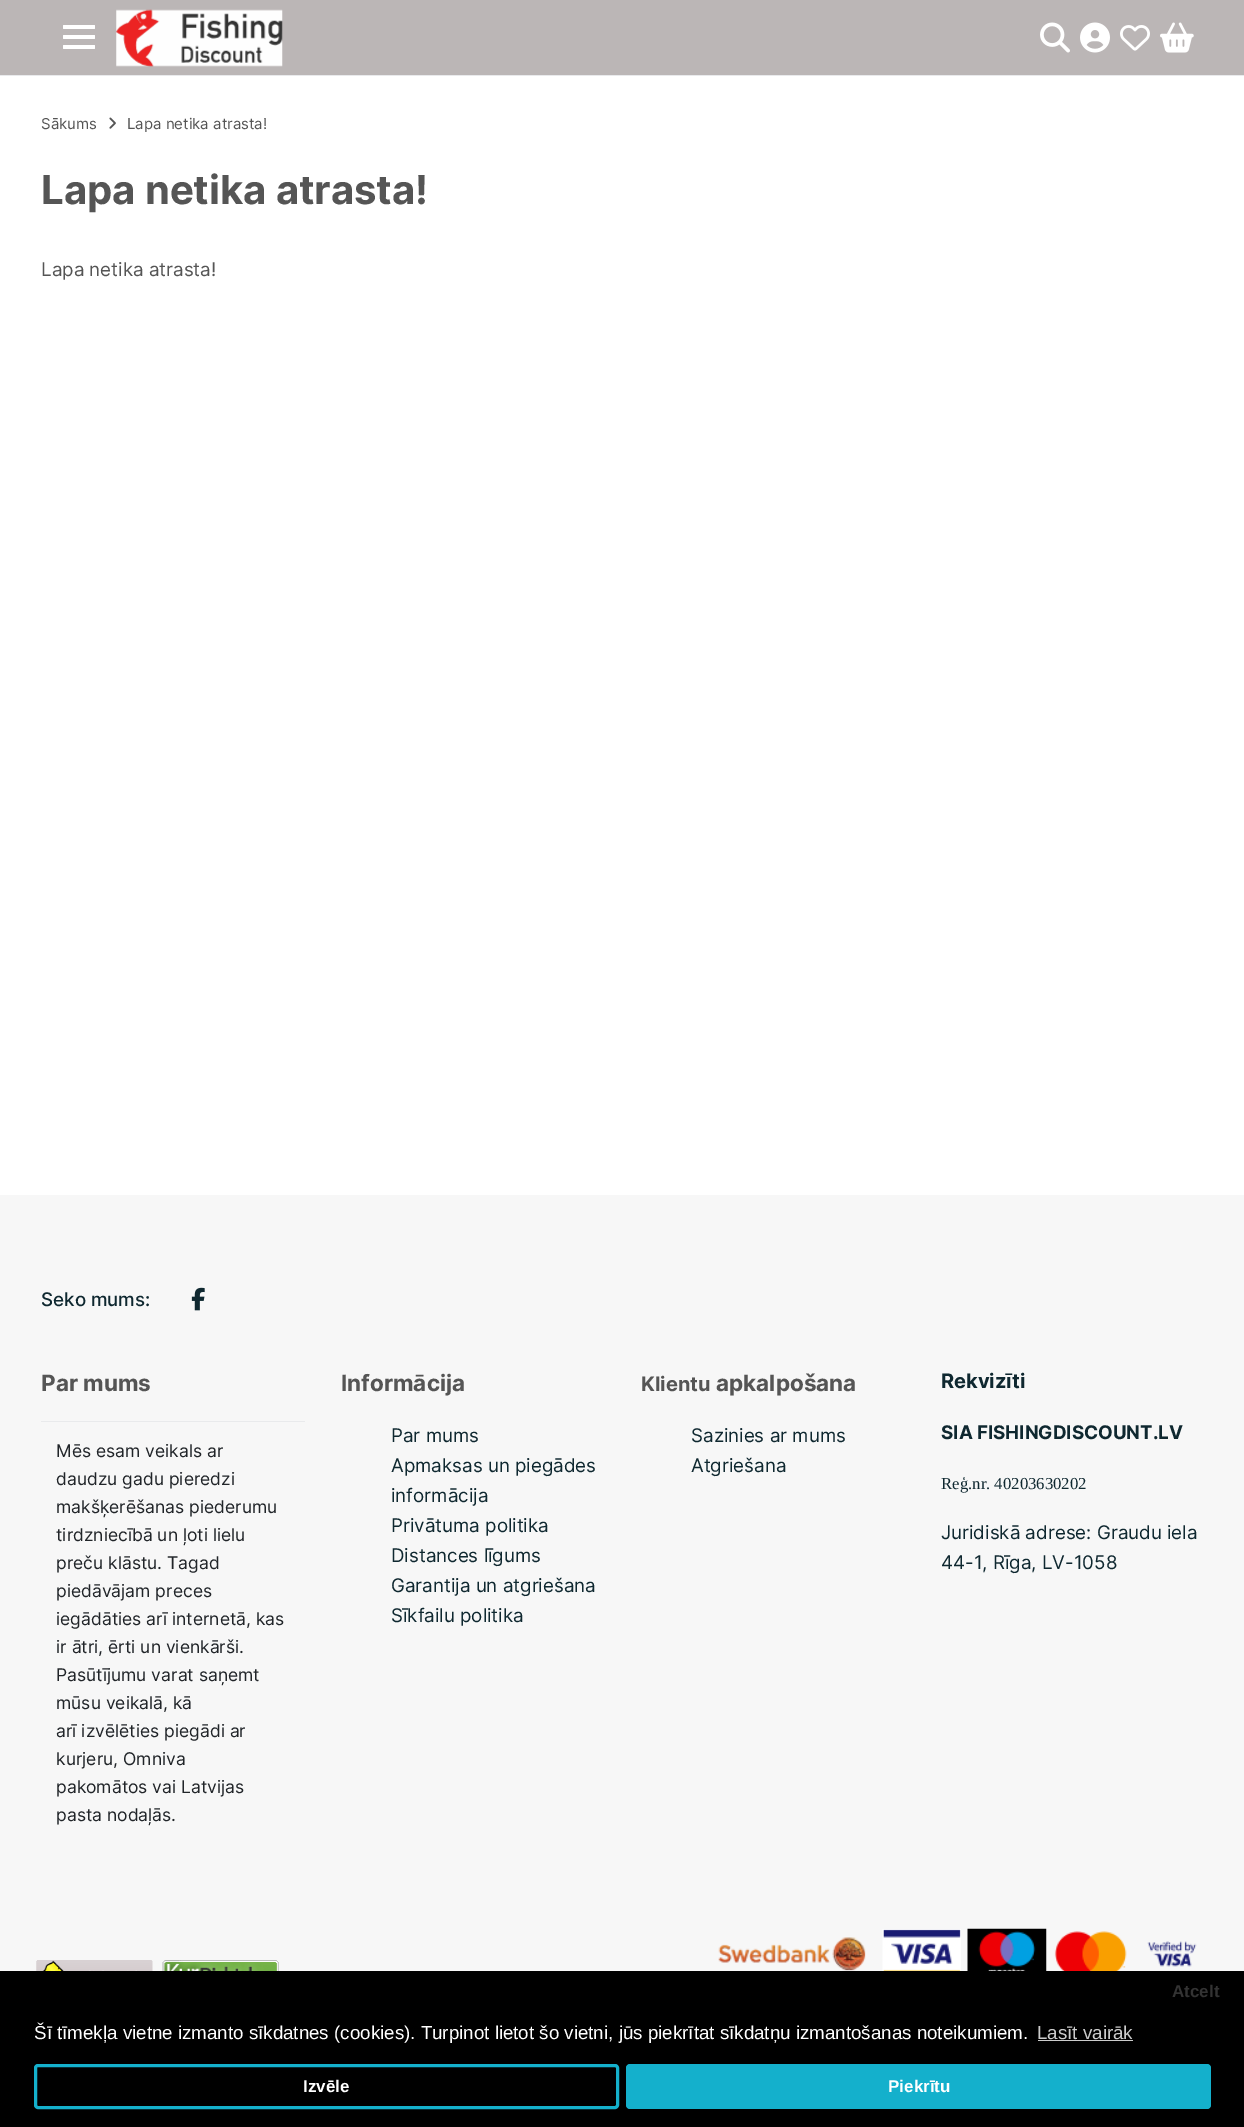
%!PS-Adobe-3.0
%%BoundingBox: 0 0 1244 2127
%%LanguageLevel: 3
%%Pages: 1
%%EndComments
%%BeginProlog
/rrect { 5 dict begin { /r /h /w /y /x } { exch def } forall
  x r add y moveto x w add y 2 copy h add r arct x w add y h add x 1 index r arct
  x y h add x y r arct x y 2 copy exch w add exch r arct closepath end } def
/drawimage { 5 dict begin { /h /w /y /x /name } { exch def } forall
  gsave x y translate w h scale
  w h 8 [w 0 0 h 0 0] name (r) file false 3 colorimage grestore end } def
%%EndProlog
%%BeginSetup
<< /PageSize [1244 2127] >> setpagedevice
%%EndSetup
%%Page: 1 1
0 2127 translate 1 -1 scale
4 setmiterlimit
1 setgray
0 0 1244 2127 rectfill
0.733 0.714 0.714 setrgbcolor
0 0 1244 75 rectfill
1 setgray
63 25 32 4 1 rrect fill
63 35 32 4 1 rrect fill
63 45 32 4 1 rrect fill
(images/1.raw) 116 9 167 58 drawimage
(images/2.raw) 1040 22 30 31 drawimage
(images/3.raw) 1080 22 30 31 drawimage
(images/4.raw) 1120 25 30 26 drawimage
(images/5.raw) 1160 22 34 31 drawimage
0.914 0.918 0.925 setrgbcolor
0 75 1244 1 rectfill
(images/6.raw) 109 117 7 12 drawimage
0.969 setgray
0 1195 1244 776 rectfill
(images/7.raw) 191 1287 14 24 drawimage
0.914 0.918 0.925 setrgbcolor
41 1421 264 1 rectfill
(images/8.raw) 36 1960 117 11 drawimage
(images/9.raw) 162 1960 117 11 drawimage
(images/10.raw) 718 1937 148 34 drawimage
(images/11.raw) 882 1929 79 42 drawimage
(images/12.raw) 967 1928 80 43 drawimage
(images/13.raw) 1054 1931 73 40 drawimage
(images/14.raw) 1147 1941 50 26 drawimage
0 setgray
0 1971 1244 156 rectfill
0.078 0.69 0.8 setrgbcolor
3 setlinewidth
35.5 2065.5 582 42 2.5 rrect stroke
626 2064 585 45 4 rrect fill
0.8 setgray
1038 2040 95 1 rectfill
/Inter-Regular [15 0 0 -15 0 0] selectfont
0.333 setgray
41 129 moveto (Sākums) show
127 129 moveto (Lapa netika atrasta!) show
/Inter-Bold [40 0 0 -40 0 0] selectfont
41 204 moveto (Lapa netika atrasta!) show
/Inter-Regular [18.75 0 0 -18.75 0 0] selectfont
41 276 moveto (Lapa netika atrasta!) show
/Inter-Medium [18.75 0 0 -18.75 0 0] selectfont
0.059 0.157 0.188 setrgbcolor
41 1306 moveto (Seko mums:) show
/Inter-Bold [22.5 0 0 -22.5 0 0] selectfont
0.333 setgray
41 1391 moveto (Par mums) show
/Inter-Regular [17.5 0 0 -17.5 0 0] selectfont
0.129 0.145 0.161 setrgbcolor
56 1457 moveto (Mēs esam veikals ar) show
56 1485 moveto (daudzu gadu pieredzi) show
56 1513 moveto (makšķerēšanas piederumu) show
56 1541 moveto (tirdzniecībā un ļoti lielu) show
56 1569 moveto (preču klāstu. Tagad) show
56 1597 moveto (piedāvājam preces) show
56 1625 moveto (iegādāties arī internetā, kas) show
56 1653 moveto (ir ātri, ērti un vienkārši.) show
56 1681 moveto (Pasūtījumu varat saņemt) show
56 1709 moveto (mūsu veikalā, kā) show
56 1737 moveto (arī izvēlēties piegādi ar) show
56 1765 moveto (kurjeru, Omniva) show
56 1793 moveto (pakomātos vai Latvijas) show
56 1821 moveto (pasta nodaļās.) show
/Inter-Bold [22.5 0 0 -22.5 0 0] selectfont
0.333 setgray
341 1391 moveto (Informācija) show
/Inter-Regular [18.75 0 0 -18.75 0 0] selectfont
0.059 0.157 0.188 setrgbcolor
391 1442 moveto (Par mums) show
391 1472 moveto (Apmaksas un piegādes) show
391 1502 moveto (informācija) show
391 1532 moveto (Privātuma politika) show
391 1562 moveto (Distances līgums) show
391 1592 moveto (Garantija un atgriešana) show
391 1622 moveto (Sīkfailu politika) show
/Inter-Bold [20 0 0 -20 0 0] selectfont
0.333 setgray
641 1391 moveto (Klientu) show
/Inter-Bold [22.5 0 0 -22.5 0 0] selectfont
716 1391 moveto (apkalpošana) show
/Inter-Regular [18.75 0 0 -18.75 0 0] selectfont
0.059 0.157 0.188 setrgbcolor
691 1442 moveto (Sazinies ar mums) show
691 1472 moveto (Atgriešana) show
/Inter-Bold [20 0 0 -20 0 0] selectfont
941 1388 moveto (Rekvizīti) show
/Inter-Bold [18.75 0 0 -18.75 0 0] selectfont
941 1439 moveto (SIA FISHINGDISCOUNT.LV) show
/LiberationSerif-Regular [16.75 0 0 -16.75 0 0] selectfont
941 1489 moveto (Reģ.nr. 40203630202) show
/Inter-Regular [18.75 0 0 -18.75 0 0] selectfont
941 1539 moveto (Juridiskā adrese: Graudu iela) show
941 1569 moveto (44-1, Rīga, LV-1058) show
/LiberationSans-Bold [17 0 0 -17 0 0] selectfont
0.2 setgray
1172 1997 moveto (Atcelt) show
1 setgray
303 2092 moveto (Izvēle) show
888 2092 moveto (Piekrītu) show
/LiberationSans-Regular [18.75 0 0 -18.75 0 0] selectfont
34 2039 moveto (Šī tīmekļa vietne izmanto sīkdatnes \(cookies\). Turpinot lietot šo vietni, jūs piekrītat sīkdatņu izmantošanas noteikumiem.) show
0.8 setgray
1037 2039 moveto (Lasīt vairāk) show
showpage
%%EOF
